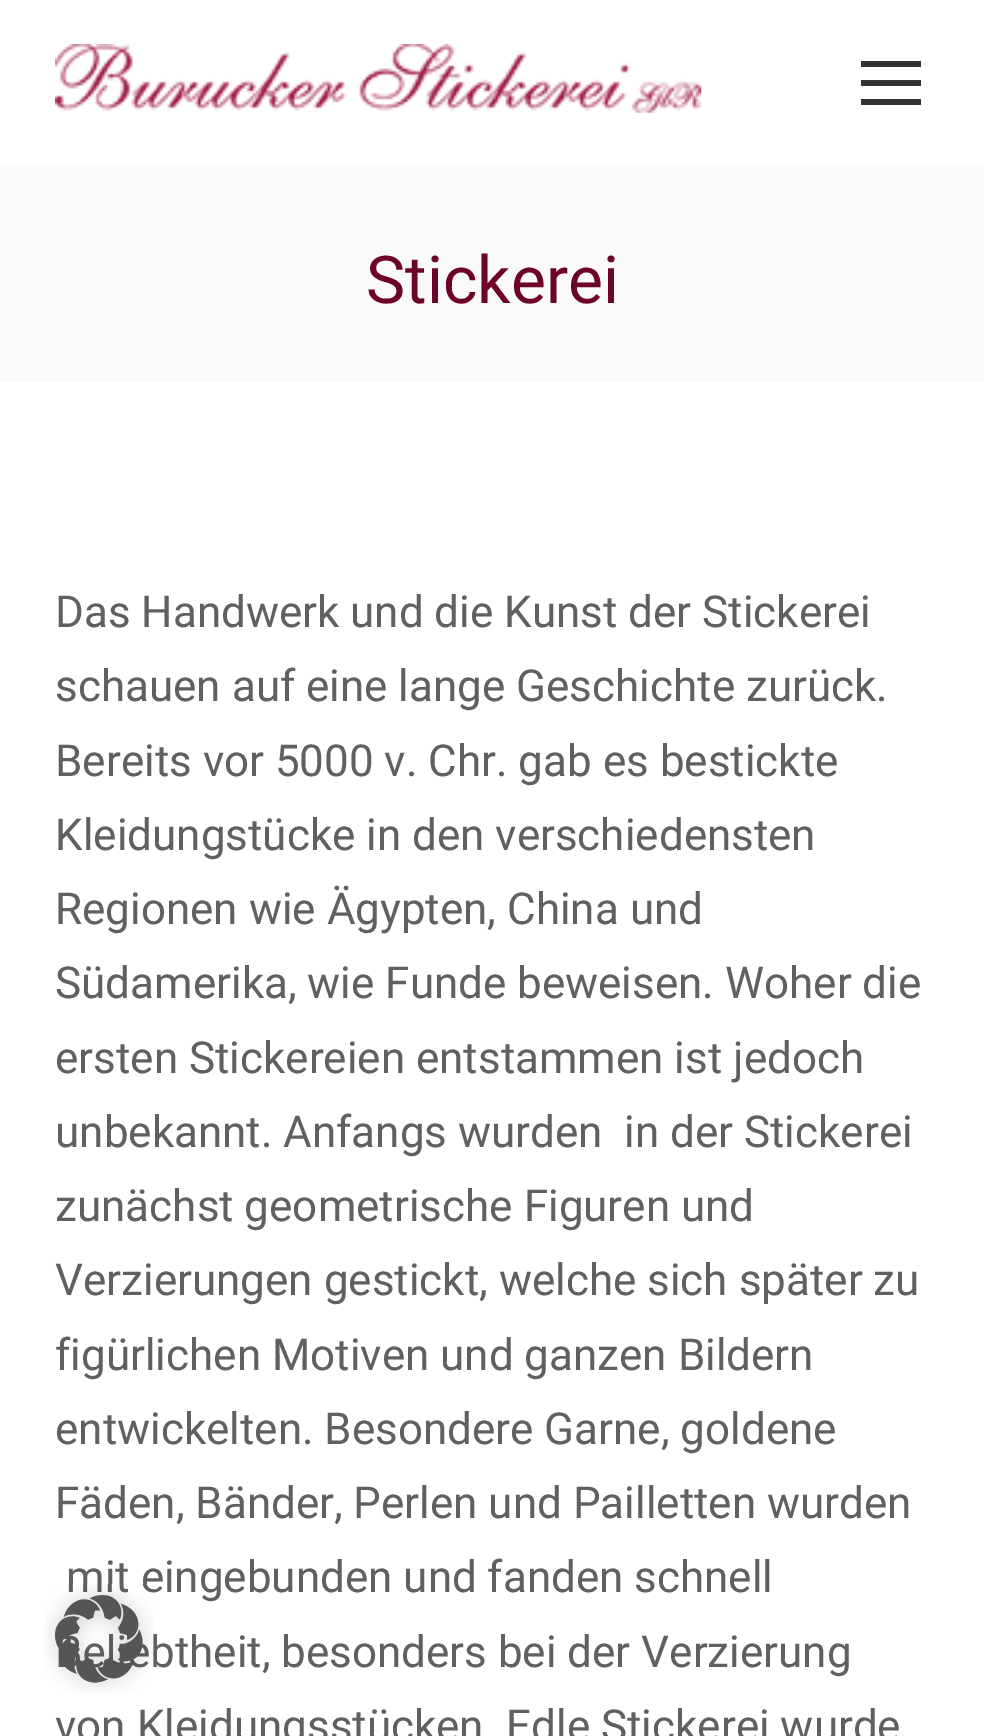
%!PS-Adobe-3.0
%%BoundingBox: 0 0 984 1736
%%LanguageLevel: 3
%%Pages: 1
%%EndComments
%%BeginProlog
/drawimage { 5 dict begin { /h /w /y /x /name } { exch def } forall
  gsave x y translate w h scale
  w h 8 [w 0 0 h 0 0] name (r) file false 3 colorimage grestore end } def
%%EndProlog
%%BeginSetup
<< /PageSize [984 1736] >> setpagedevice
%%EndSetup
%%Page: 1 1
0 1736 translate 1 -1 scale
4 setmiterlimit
1 setgray
0 0 984 1736 rectfill
(images/1.raw) 55 44 647 69 drawimage
0.2 setgray
861 61 60 6 rectfill
861 80 60 6 rectfill
861 99 60 6 rectfill
0.98 setgray
0 165 984 217 rectfill
/Roboto-Regular [66 0 0 -66 0 0] selectfont
0.427 0.016 0.153 setrgbcolor
366 303 moveto (Stickerei) show
/Roboto-Regular [44 0 0 -44 0 0] selectfont
0.376 setgray
55 627 moveto (Das Handwerk und die Kunst der Stickerei) show
55 701 moveto (schauen auf eine lange Geschichte zurück.) show
55 776 moveto (Bereits vor 5000 v. Chr. gab es bestickte) show
55 850 moveto (Kleidungstücke in den verschiedensten) show
55 924 moveto (Regionen wie Ägypten, China und) show
55 998 moveto (Südamerika, wie Funde beweisen. Woher die) show
55 1073 moveto (ersten Stickereien entstammen ist jedoch) show
55 1147 moveto (unbekannt. Anfangs wurden  in der Stickerei) show
55 1221 moveto (zunächst geometrische Figuren und) show
55 1295 moveto (Verzierungen gestickt, welche sich später zu) show
55 1370 moveto (figürlichen Motiven und ganzen Bildern) show
55 1444 moveto (entwickelten. Besondere Garne, goldene) show
55 1518 moveto (Fäden, Bänder, Perlen und Pailletten wurden) show
66 1592 moveto (mit eingebunden und fanden schnell) show
150 1667 moveto (btheit, besonders bei der Verzierung) show
55 1741 moveto (von Kleidungsstücken. Edle Stickerei wurde) show
(images/2.raw) 44 1584 110 110 drawimage
showpage
%%EOF
